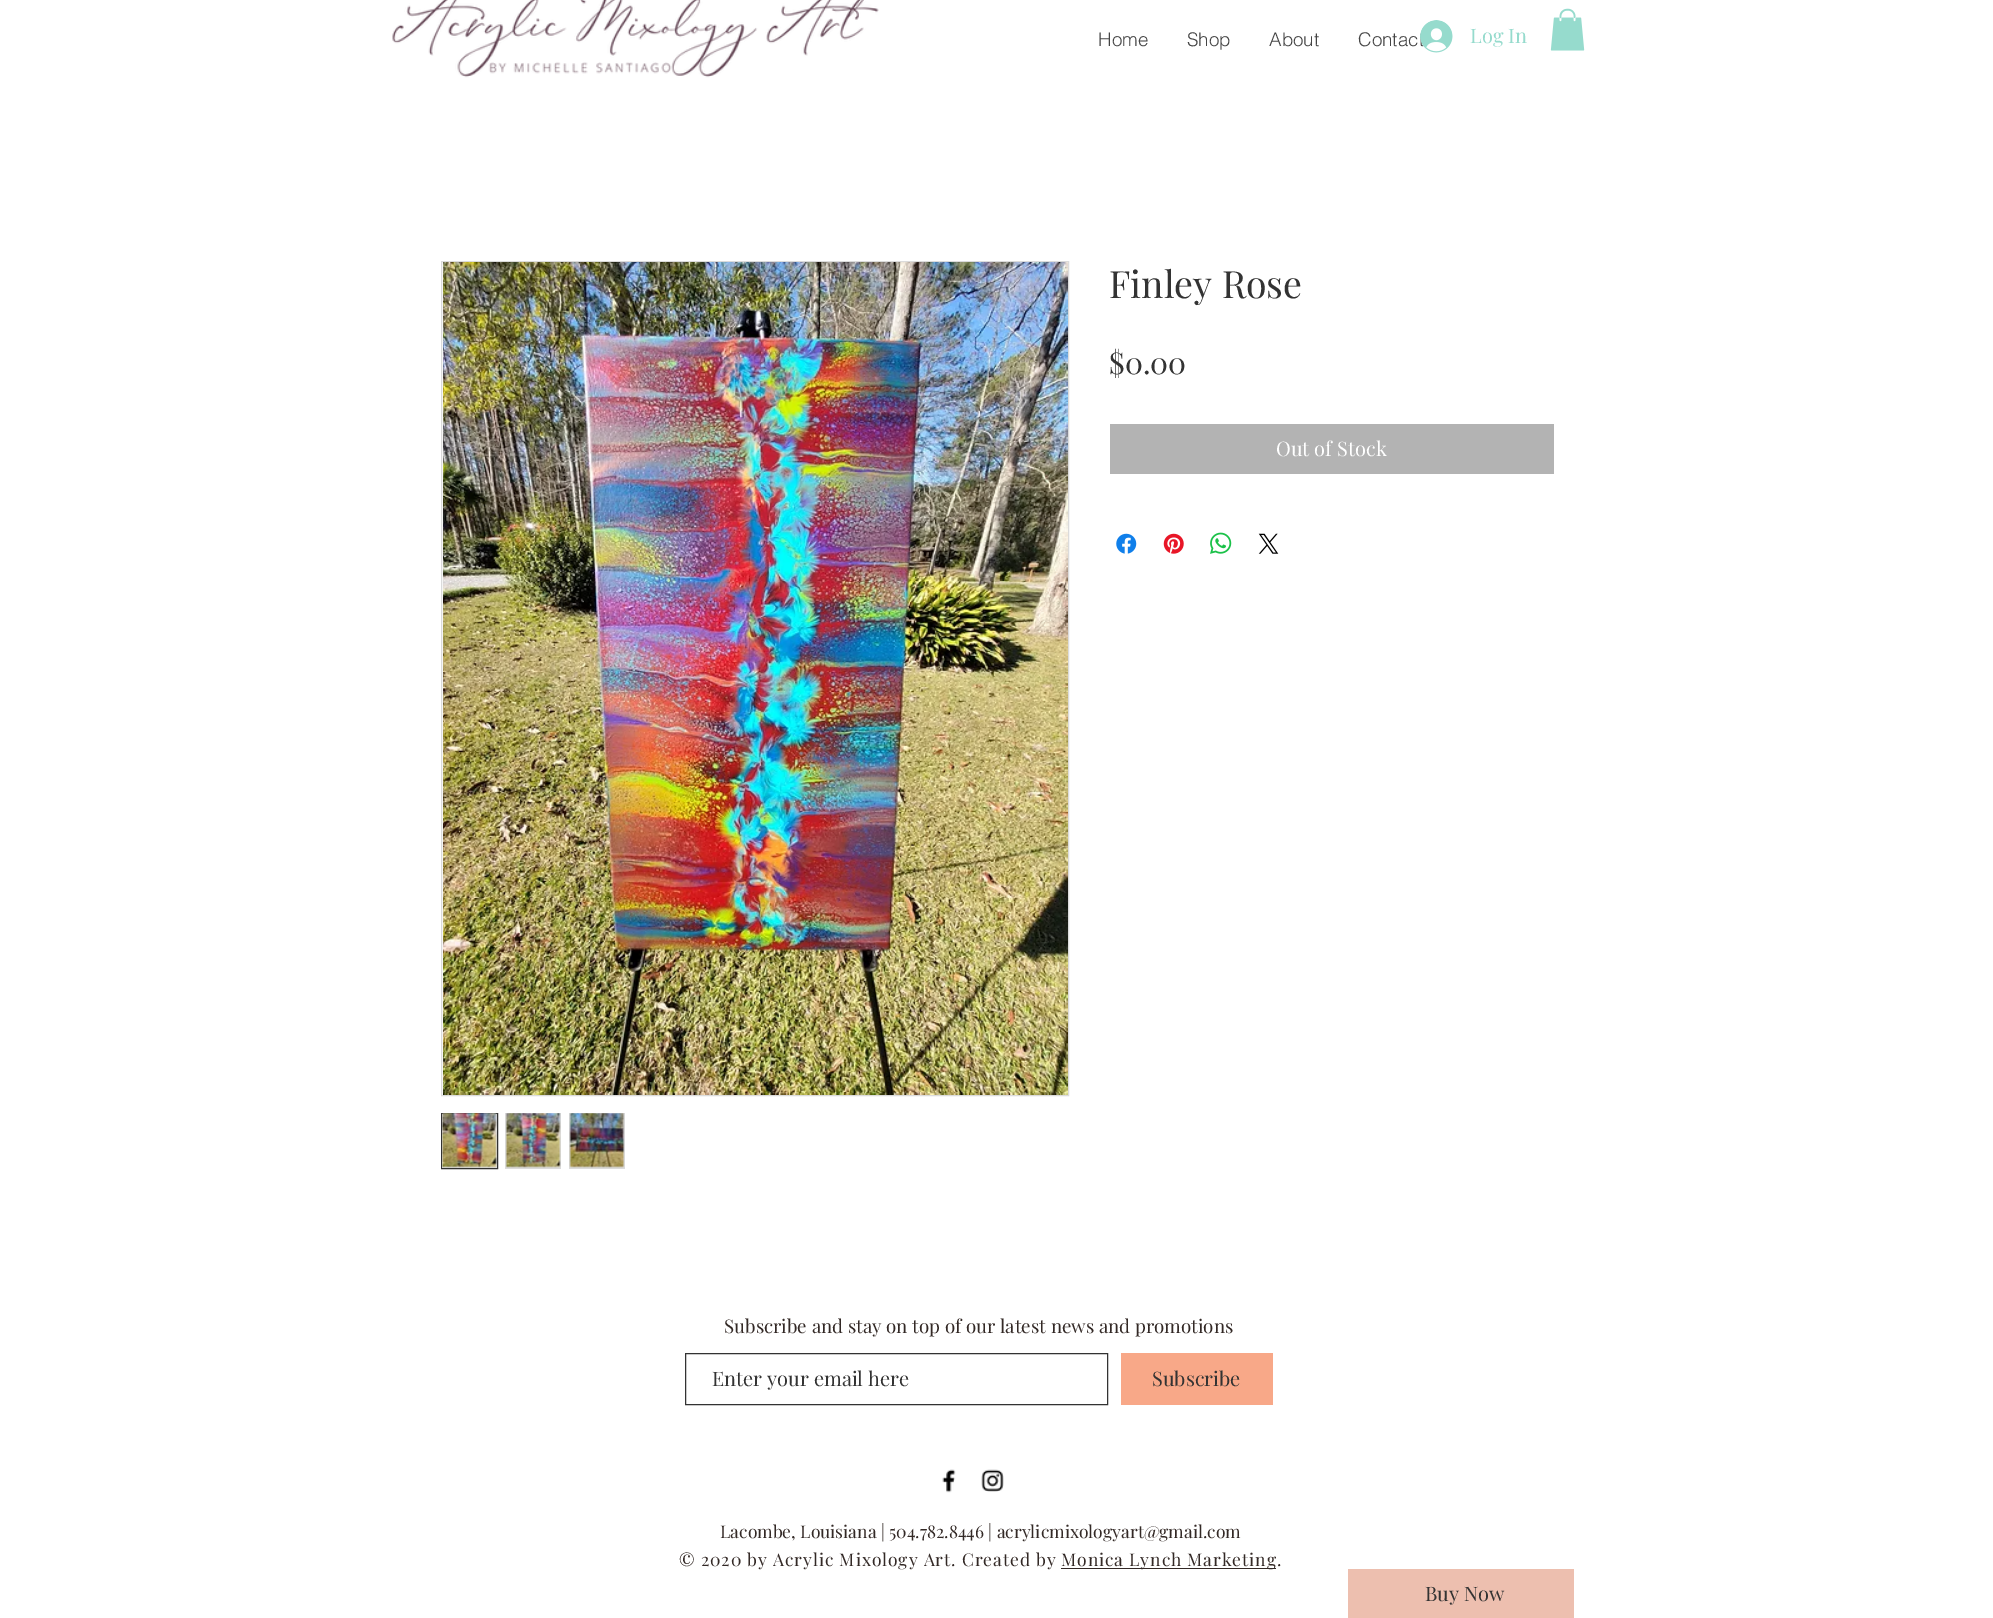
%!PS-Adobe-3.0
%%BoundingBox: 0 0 1993 1618
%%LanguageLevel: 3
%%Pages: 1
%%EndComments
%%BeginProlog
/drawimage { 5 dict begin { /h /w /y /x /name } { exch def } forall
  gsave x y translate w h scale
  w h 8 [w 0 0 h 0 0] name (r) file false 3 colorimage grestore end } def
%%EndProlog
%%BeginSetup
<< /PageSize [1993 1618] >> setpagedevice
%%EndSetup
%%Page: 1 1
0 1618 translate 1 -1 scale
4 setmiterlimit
1 setgray
0 0 1993 1618 rectfill
(images/1.raw) 392 0 487 78 drawimage
(images/2.raw) 1420 20 33 33 drawimage
(images/3.raw) 1550 8 35 43 drawimage
0.859 setgray
441.5 261.5 627 834 rectstroke
(images/4.raw) 443 262 625 833 drawimage
newpath 441.5 1113.5 moveto 497.5 1113.5 lineto 497.5 1168.5 lineto 441.5 1168.5 lineto closepath gsave fill grestore
0.2 setgray
stroke
(images/5.raw) 442 1113 55 55 drawimage
0.859 setgray
505 1113 56 56 rectfill
(images/6.raw) 505 1113 56 55 drawimage
569 1113 56 56 rectfill
(images/7.raw) 569 1113 56 55 drawimage
0.702 setgray
1110 424 444 50 rectfill
(images/8.raw) 1116 533 21 21 drawimage
(images/9.raw) 1163 533 21 21 drawimage
(images/10.raw) 1210 532 22 22 drawimage
(images/11.raw) 1258 533 21 21 drawimage
0.2 setgray
685.5 1353.5 422 51 rectstroke
0.973 0.659 0.533 setrgbcolor
1121 1353 152 52 rectfill
(images/12.raw) 942 1469 14 24 drawimage
(images/13.raw) 981 1469 23 23 drawimage
0.2 0.161 0.149 setrgbcolor
1061 1568 215 1 rectfill
0.929 0.749 0.686 setrgbcolor
1348 1569 226 49 rectfill
/helvetica-Light [18.75 0 0 -18.75 0 0] selectfont
0.267 setgray
1098 46 moveto (Home) show
1187 46 moveto (Shop) show
1269 46 moveto (About) show
1358 46 moveto (Contac) show
/PlayfairDisplay-Regular [20 0 0 -20 0 0] selectfont
0.588 0.859 0.804 setrgbcolor
1470 43 moveto (Log In) show
/PlayfairDisplay-Regular [37.5 0 0 -37.5 0 0] selectfont
0.2 setgray
1109 298 moveto (Finley Rose) show
/PlayfairDisplay-Regular [30 0 0 -30 0 0] selectfont
1109 374 moveto ($0.00) show
/PlayfairDisplay-Regular [20 0 0 -20 0 0] selectfont
1 setgray
1276 456 moveto (Out of Stock) show
/PlayfairDisplay-Regular [18.75 0 0 -18.75 0 0] selectfont
0.2 0.161 0.149 setrgbcolor
724 1333 moveto (Subscribe and stay on top of our latest news and promotions) show
/PlayfairDisplay-Regular [20 0 0 -20 0 0] selectfont
0.2 setgray
712 1386 moveto (Enter your email here) show
1152 1386 moveto (Subscribe) show
/PlayfairDisplay-Regular [17.5 0 0 -17.5 0 0] selectfont
0.2 0.161 0.149 setrgbcolor
720 1538 moveto (Lacombe, Louisiana | 504.782.8446 | acrylicmixologyart@gmail.com) show
679 1566 moveto 0.9 0 (© 2020 by Acrylic Mixology Art. Created by) ashow
1061 1566 moveto 0.9 0 (Monica Lynch Marketing.) ashow
/PlayfairDisplay-Regular [20 0 0 -20 0 0] selectfont
0.2 setgray
1425 1601 moveto (Buy Now) show
showpage
%%EOF
